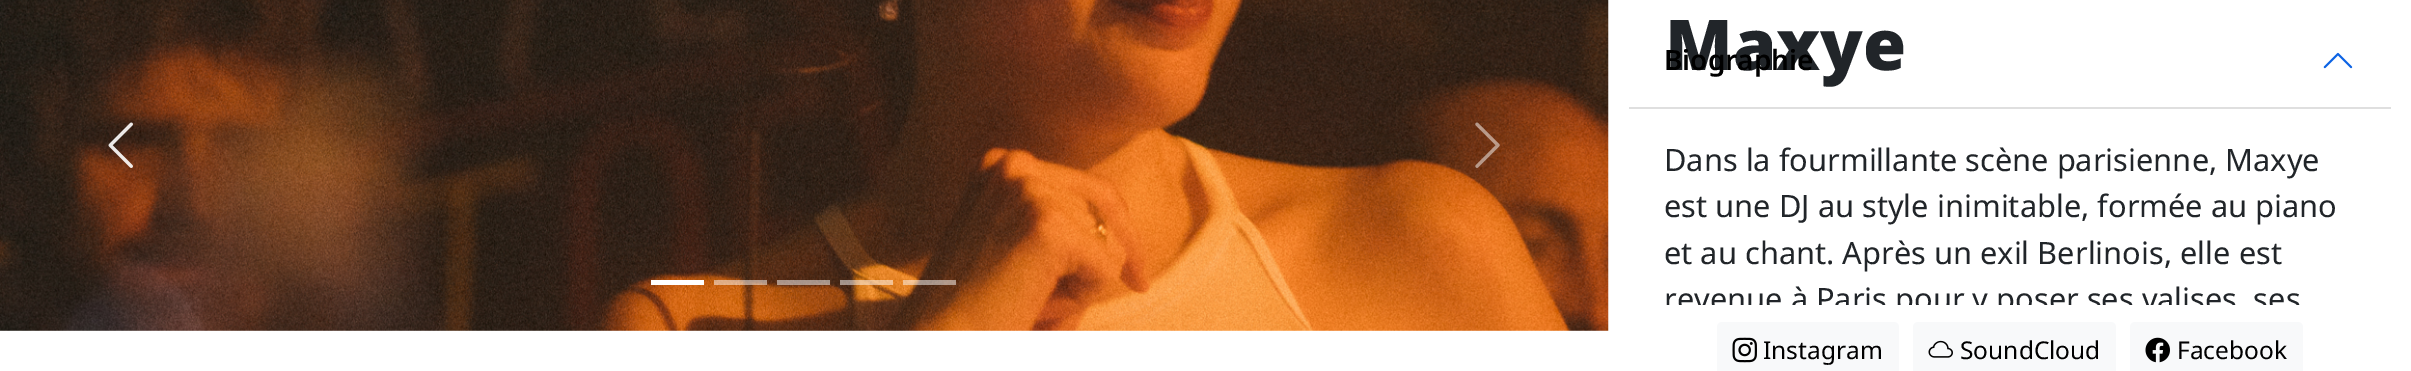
%!PS-Adobe-3.0
%%BoundingBox: 0 0 2411 371
%%LanguageLevel: 3
%%Pages: 1
%%EndComments
%%BeginProlog
/setalpha { dup .setfillconstantalpha .setstrokeconstantalpha } def
/rrect { 5 dict begin { /r /h /w /y /x } { exch def } forall
  x r add y moveto x w add y 2 copy h add r arct x w add y h add x 1 index r arct
  x y h add x y r arct x y 2 copy exch w add exch r arct closepath end } def
/drawimage { 5 dict begin { /h /w /y /x /name } { exch def } forall
  gsave x y translate w h scale
  w h 8 [w 0 0 h 0 0] name (r) file false 3 colorimage grestore end } def
%%EndProlog
%%BeginSetup
<< /PageSize [2411 371] /PageUsesTransparency true >> setpagedevice
%%EndSetup
%%Page: 1 1
0 .pushpdf14devicefilter
0 371 translate 1 -1 scale
4 setmiterlimit
1 setgray
0 0 2411 371 rectfill
(images/1.raw) 0 0 1609 331 drawimage
(images/2.raw) 108 122 25 46 drawimage
(images/3.raw) 1475 122 25 46 drawimage
651 280 53 5 rectfill
0.5 setalpha
714 280 53 5 rectfill
777 280 53 5 rectfill
840 280 53 5 rectfill
903 280 53 5 rectfill
1 setalpha
0.875 setgray
1629 107 762 2 rectfill
(images/4.raw) 2323 52 30 17 drawimage
0.973 0.976 0.98 setrgbcolor
1717 322 182 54 5 rrect fill
(images/5.raw) 1732 337 25 26 drawimage
1913 322 203 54 5 rrect fill
(images/6.raw) 1928 340 25 18 drawimage
2130 322 173 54 5 rrect fill
(images/7.raw) 2145 337 25 26 drawimage
/NotoSans-Black [70 0 0 -70 0 0] selectfont
0.129 0.145 0.161 setrgbcolor
1665 70 moveto (Maxye) show
/NotoSans-SemiBold [28 0 0 -28 0 0] selectfont
0 setgray
1664 70 moveto (Biographie) show
/NotoSans-Regular [30.8 0 0 -30.8 0 0] selectfont
0.129 0.145 0.161 setrgbcolor
1664 171 moveto (Dans la fourmillante scène parisienne, Maxye) show
1664 217 moveto (est une DJ au style inimitable, formée au piano) show
1664 264 moveto (et au chant. Après un exil Berlinois, elle est) show
gsave
1629 16 762 289 rectclip
1664 310 moveto (revenue à Paris pour y poser ses valises, ses) show
grestore
/NotoSans-Regular [24.5 0 0 -24.5 0 0] selectfont
0 setgray
1763 359 moveto (Instagram) show
1960 359 moveto (SoundCloud) show
2177 359 moveto (Facebook) show
.poppdf14devicefilter showpage
%%EOF
